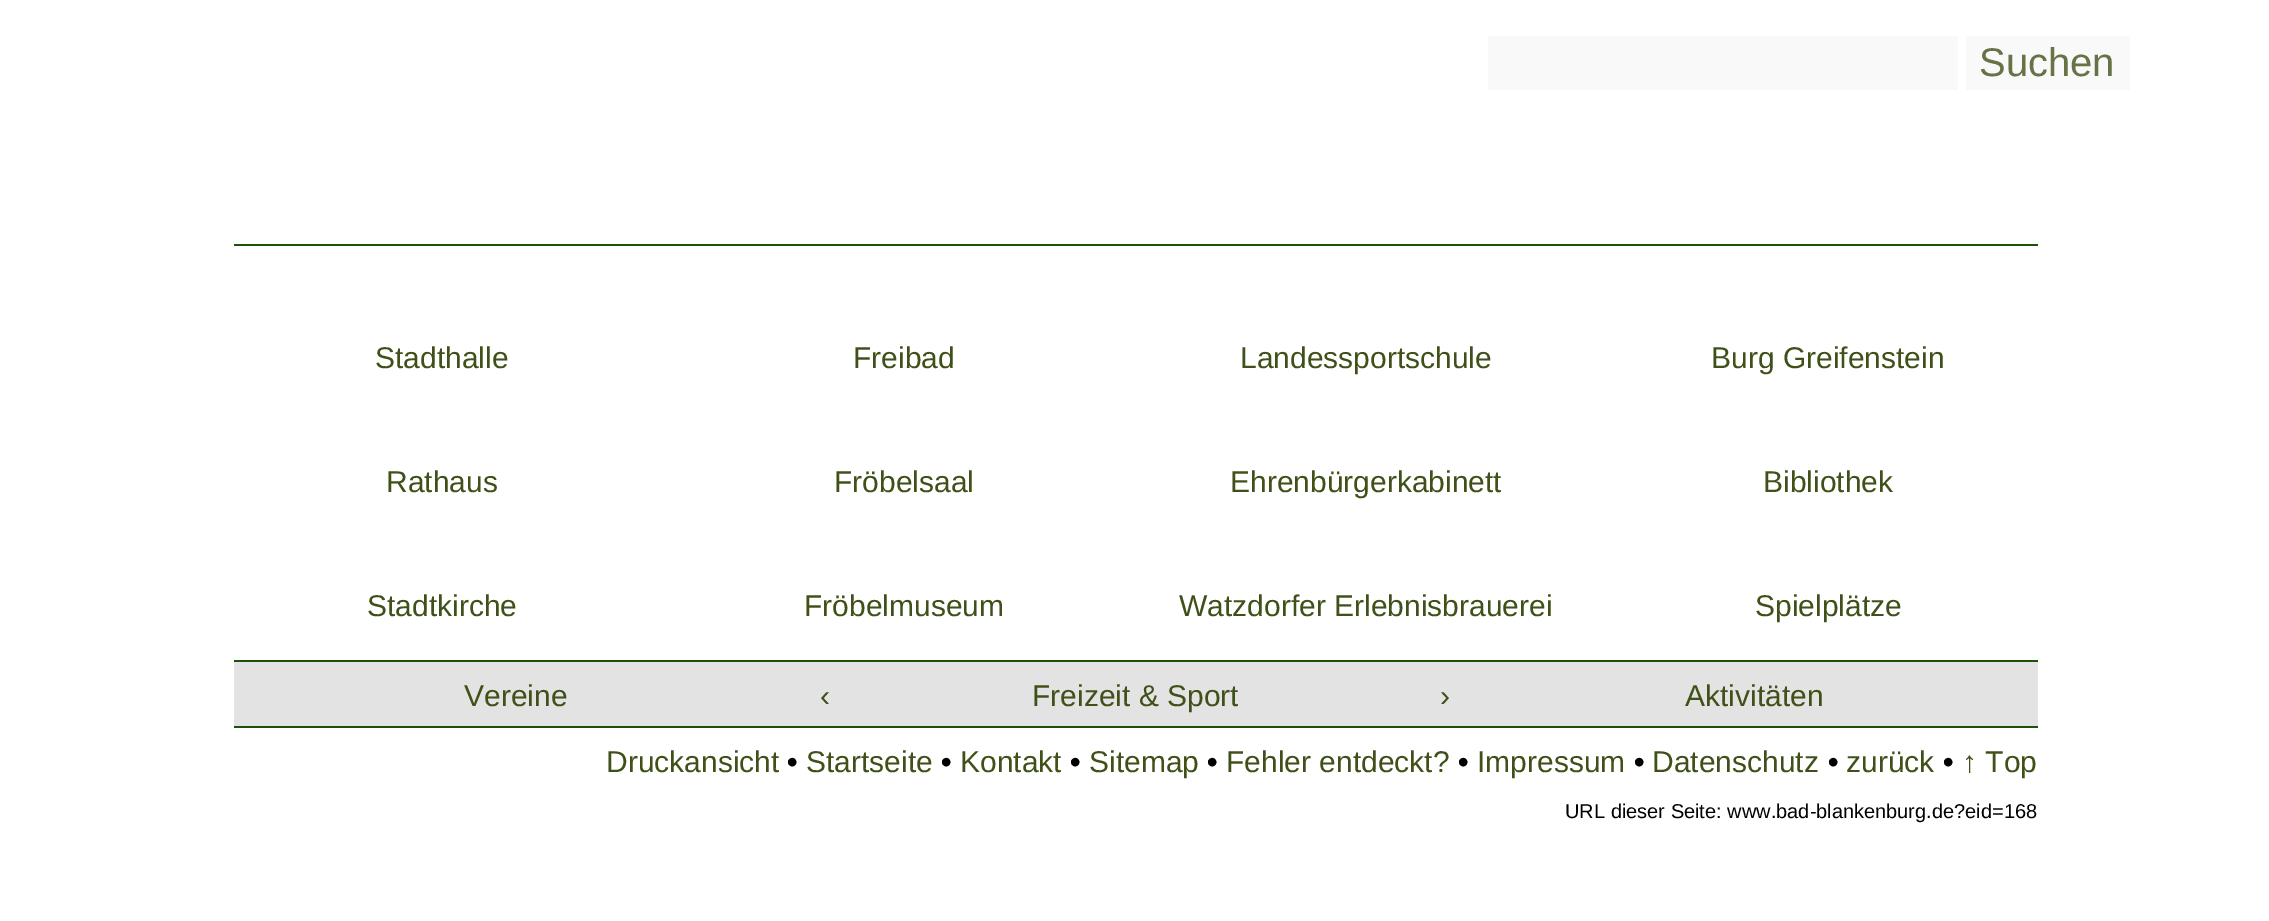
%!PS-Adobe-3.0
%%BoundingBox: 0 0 2269 921
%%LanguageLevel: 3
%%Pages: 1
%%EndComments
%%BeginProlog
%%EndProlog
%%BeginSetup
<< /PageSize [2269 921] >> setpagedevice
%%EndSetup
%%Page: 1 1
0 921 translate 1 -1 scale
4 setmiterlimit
1 setgray
0 0 2269 921 rectfill
0.976 setgray
1488 36 470 54 rectfill
1966 36 164 54 rectfill
0.114 0.318 0.035 setrgbcolor
234 244 1804 2 rectfill
234 660 1804 2 rectfill
0.89 setgray
234 662 1804 64 rectfill
0.114 0.318 0.035 setrgbcolor
234 726 1804 2 rectfill
/LiberationSans-Regular [40 0 0 -40 0 0] selectfont
0.396 0.451 0.278 setrgbcolor
1979 76 moveto (Suchen) show
/LiberationSans-Regular [30 0 0 -30 0 0] selectfont
0.247 0.314 0.098 setrgbcolor
375 368 moveto (Stadthalle) show
853 368 moveto (Freibad) show
1240 368 moveto (Landessportschule) show
1711 368 moveto (Burg Greifenstein) show
386 492 moveto (Rathaus) show
834 492 moveto (Fröbelsaal) show
1230 492 moveto (Ehrenbürgerkabinett) show
1763 492 moveto (Bibliothek) show
367 616 moveto (Stadtkirche) show
804 616 moveto (Fröbelmuseum) show
1179 616 moveto (Watzdorfer Erlebnisbrauerei) show
1755 616 moveto (Spielplätze) show
464 706 moveto (Vereine) show
820 706 moveto (‹) show
1032 706 moveto (Freizeit & Sport) show
1440 706 moveto (›) show
1685 706 moveto (Aktivitäten) show
606 772 moveto (Druckansicht) show
/LiberationSans-Bold [30 0 0 -30 0 0] selectfont
0 setgray
787 772 moveto (•) show
/LiberationSans-Regular [30 0 0 -30 0 0] selectfont
0.247 0.314 0.098 setrgbcolor
806 772 moveto (Startseite) show
/LiberationSans-Bold [30 0 0 -30 0 0] selectfont
0 setgray
941 772 moveto (•) show
/LiberationSans-Regular [30 0 0 -30 0 0] selectfont
0.247 0.314 0.098 setrgbcolor
960 772 moveto (Kontakt) show
/LiberationSans-Bold [30 0 0 -30 0 0] selectfont
0 setgray
1070 772 moveto (•) show
/LiberationSans-Regular [30 0 0 -30 0 0] selectfont
0.247 0.314 0.098 setrgbcolor
1089 772 moveto (Sitemap) show
/LiberationSans-Bold [30 0 0 -30 0 0] selectfont
0 setgray
1207 772 moveto (•) show
/LiberationSans-Regular [30 0 0 -30 0 0] selectfont
0.247 0.314 0.098 setrgbcolor
1226 772 moveto (Fehler entdeckt?) show
/LiberationSans-Bold [30 0 0 -30 0 0] selectfont
0 setgray
1458 772 moveto (•) show
/LiberationSans-Regular [30 0 0 -30 0 0] selectfont
0.247 0.314 0.098 setrgbcolor
1477 772 moveto (Impressum) show
/LiberationSans-Bold [30 0 0 -30 0 0] selectfont
0 setgray
1634 772 moveto (•) show
/LiberationSans-Regular [30 0 0 -30 0 0] selectfont
0.247 0.314 0.098 setrgbcolor
1652 772 moveto (Datenschutz) show
/LiberationSans-Bold [30 0 0 -30 0 0] selectfont
0 setgray
1828 772 moveto (•) show
/LiberationSans-Regular [30 0 0 -30 0 0] selectfont
0.247 0.314 0.098 setrgbcolor
1846 772 moveto (zurück) show
/LiberationSans-Bold [30 0 0 -30 0 0] selectfont
0 setgray
1943 772 moveto (•) show
/LiberationSans-Regular [30 0 0 -30 0 0] selectfont
0.247 0.314 0.098 setrgbcolor
1962 772 moveto (↑ Top) show
/LiberationSans-Regular [20 0 0 -20 0 0] selectfont
0 setgray
1565 818 moveto (URL dieser Seite: www.bad-blankenburg.de?eid=168) show
showpage
%%EOF
